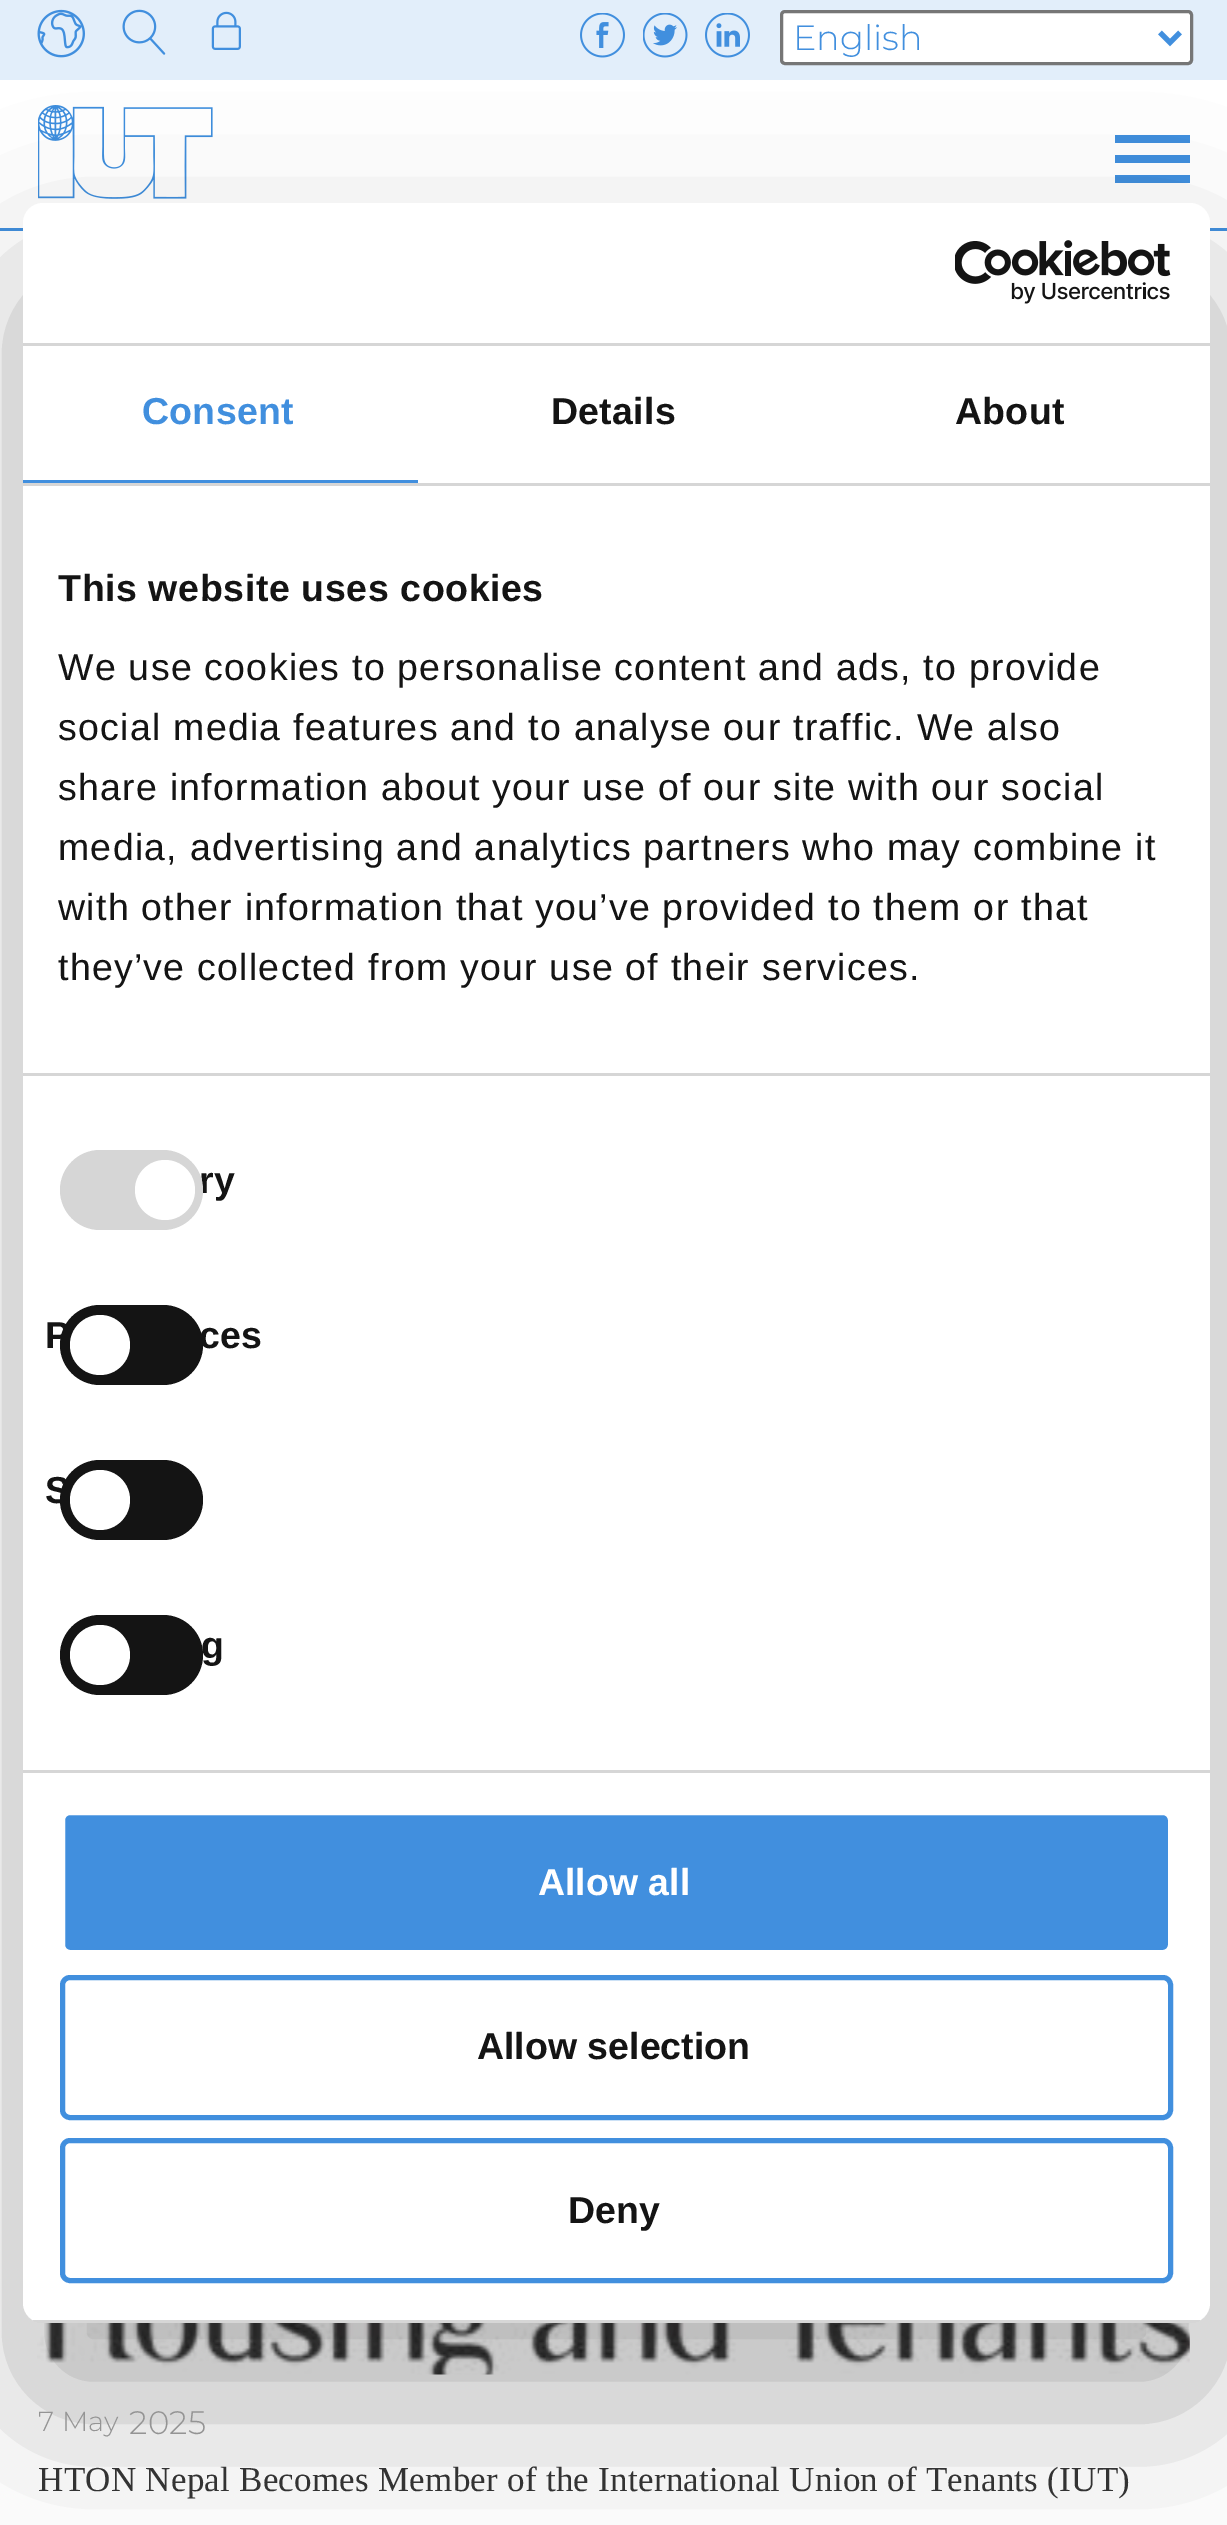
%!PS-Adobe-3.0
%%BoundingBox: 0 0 1227 2525
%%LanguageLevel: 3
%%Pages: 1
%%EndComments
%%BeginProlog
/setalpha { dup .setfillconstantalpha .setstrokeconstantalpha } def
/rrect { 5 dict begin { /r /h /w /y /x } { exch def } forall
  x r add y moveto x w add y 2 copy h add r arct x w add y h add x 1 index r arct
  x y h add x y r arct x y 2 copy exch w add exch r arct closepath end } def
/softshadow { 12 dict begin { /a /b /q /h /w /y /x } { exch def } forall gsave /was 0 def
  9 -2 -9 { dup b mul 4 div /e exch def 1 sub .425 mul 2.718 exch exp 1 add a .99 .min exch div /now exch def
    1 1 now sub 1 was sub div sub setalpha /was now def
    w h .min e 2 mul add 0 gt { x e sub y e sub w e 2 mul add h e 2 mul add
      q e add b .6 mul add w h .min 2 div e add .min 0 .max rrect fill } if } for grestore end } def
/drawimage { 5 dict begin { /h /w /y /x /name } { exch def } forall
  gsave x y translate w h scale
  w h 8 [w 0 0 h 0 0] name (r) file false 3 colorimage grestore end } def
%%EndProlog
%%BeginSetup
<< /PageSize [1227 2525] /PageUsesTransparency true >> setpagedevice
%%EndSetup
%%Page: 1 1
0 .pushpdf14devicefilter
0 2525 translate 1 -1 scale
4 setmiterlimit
1 setgray
0 0 1227 2525 rectfill
0.886 0.933 0.98 setrgbcolor
0 0 1227 80 rectfill
(images/1.raw) 37 9 48 49 drawimage
(images/2.raw) 122 9 44 46 drawimage
(images/3.raw) 211 11 30 39 drawimage
(images/4.raw) 580 13 45 45 drawimage
(images/5.raw) 643 13 45 45 drawimage
(images/6.raw) 705 13 45 45 drawimage
1 setgray
781.5 11.5 410 52 3.5 rrect gsave fill grestore
0.463 setgray
3 setlinewidth
stroke
0.255 0.561 0.871 setrgbcolor
5 setlinewidth
newpath 1160 32.5 moveto 1170 42.5 lineto 1180 32.5 lineto stroke
0 228 1227 3 rectfill
(images/7.raw) 38 105 175 94 drawimage
1115 155 75 8 rectfill
1115 135 75 8 rectfill
1115 175 75 8 rectfill
(images/9.raw) 37 2322 1153 53 drawimage
gsave
newpath 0 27 moveto 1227 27 lineto 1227 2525 lineto 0 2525 lineto closepath 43 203 moveto 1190 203 lineto 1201 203 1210 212 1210 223 curveto 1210 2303 lineto 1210 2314 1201 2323 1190 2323 curveto 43 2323 lineto 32 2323 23 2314 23 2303 curveto 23 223 lineto 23 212 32 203 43 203 curveto closepath eoclip newpath
0 setgray
23 283 1187 2120 20 85 0.3 softshadow
grestore
1 setgray
23 203 1187 2120 20 rrect fill
0.839 setgray
23 343 1187 3 rectfill
(images/8.raw) 955 240 216 64 drawimage
23 483 1187 3 rectfill
0.255 0.561 0.871 setrgbcolor
23 480 395 3 rectfill
0.839 setgray
23 1073 1187 3 rectfill
23 1770 1187 3 rectfill
0.078 setgray
60 1305 143 80 40 rrect fill
1 setgray
newpath 100 1345 30 0 360 arc closepath fill
0.078 setgray
60 1460 143 80 40 rrect fill
1 setgray
newpath 100 1500 30 0 360 arc closepath fill
0.078 setgray
60 1615 143 80 40 rrect fill
1 setgray
newpath 100 1655 30 0 360 arc closepath fill
gsave
23 203 1187 2120 20 rrect clip newpath
0.839 setgray
32 2320 1169 3 rectfill
grestore
0.255 0.561 0.871 setrgbcolor
62.5 1812.5 1108 140 7.5 rrect gsave fill grestore
1 setgray
stroke
0.255 0.561 0.871 setrgbcolor
62.5 1977.5 1108 140 7.5 rrect stroke
62.5 2140.5 1108 140 7.5 rrect stroke
/Montserrat-Light [35 0 0 -35 0 0] selectfont
793 50 moveto (English) show
/LiberationSans-Bold [37.5 0 0 -37.5 0 0] selectfont
142 424 moveto 0.25 0 (Consent) ashow
0.078 setgray
551 424 moveto 0.25 0 (Details) ashow
955 424 moveto 0.25 0 (About) ashow
58 601 moveto 0.6 0 (This website uses cookies) ashow
/LiberationSans-Regular [37.5 0 0 -37.5 0 0] selectfont
58 680 moveto 1.25 0 (We use cookies to personalise content and ads, to provide) ashow
58 740 moveto 1.25 0 (social media features and to analyse our traffic. We also) ashow
58 800 moveto 1.25 0 (share information about your use of our site with our social) ashow
58 860 moveto 1.25 0 (media, advertising and analytics partners who may combine it) ashow
58 920 moveto 1.25 0 (with other information that you’ve provided to them or that) ashow
58 980 moveto 1.25 0 (they’ve collected from your use of their services.) ashow
/LiberationSans-Bold [37.5 0 0 -37.5 0 0] selectfont
199 1193 moveto 0.25 0 (ry) ashow
0.839 setgray
60 1150 143 80 40 rrect fill
1 setgray
newpath 165 1190 30 0 360 arc closepath fill
0.078 setgray
45 1348 moveto 0.25 0 (P) ashow
199 1348 moveto 0.25 0 (ces) ashow
45 1503 moveto 0.25 0 (S) ashow
201 1658 moveto 0.25 0 (g) ashow
1 setgray
538 1895 moveto (Allow all) show
0.078 setgray
477 2059 moveto (Allow selection) show
568 2223 moveto (Deny) show
/Montserrat-Light [27.5 0 0 -27.5 0 0] selectfont
0.58 setgray
38 2431 moveto 0.25 0 (7 May) ashow
/Montserrat-Light [32.5 0 0 -32.5 0 0] selectfont
129 2434 moveto 0.25 0 (2025) ashow
/LiberationSerif-Regular [35 0 0 -35 0 0] selectfont
0.2 setgray
38 2491 moveto 0.25 0 (HTON Nepal Becomes Member of the International Union of Tenants \(IUT\)) ashow
.poppdf14devicefilter showpage
%%EOF
